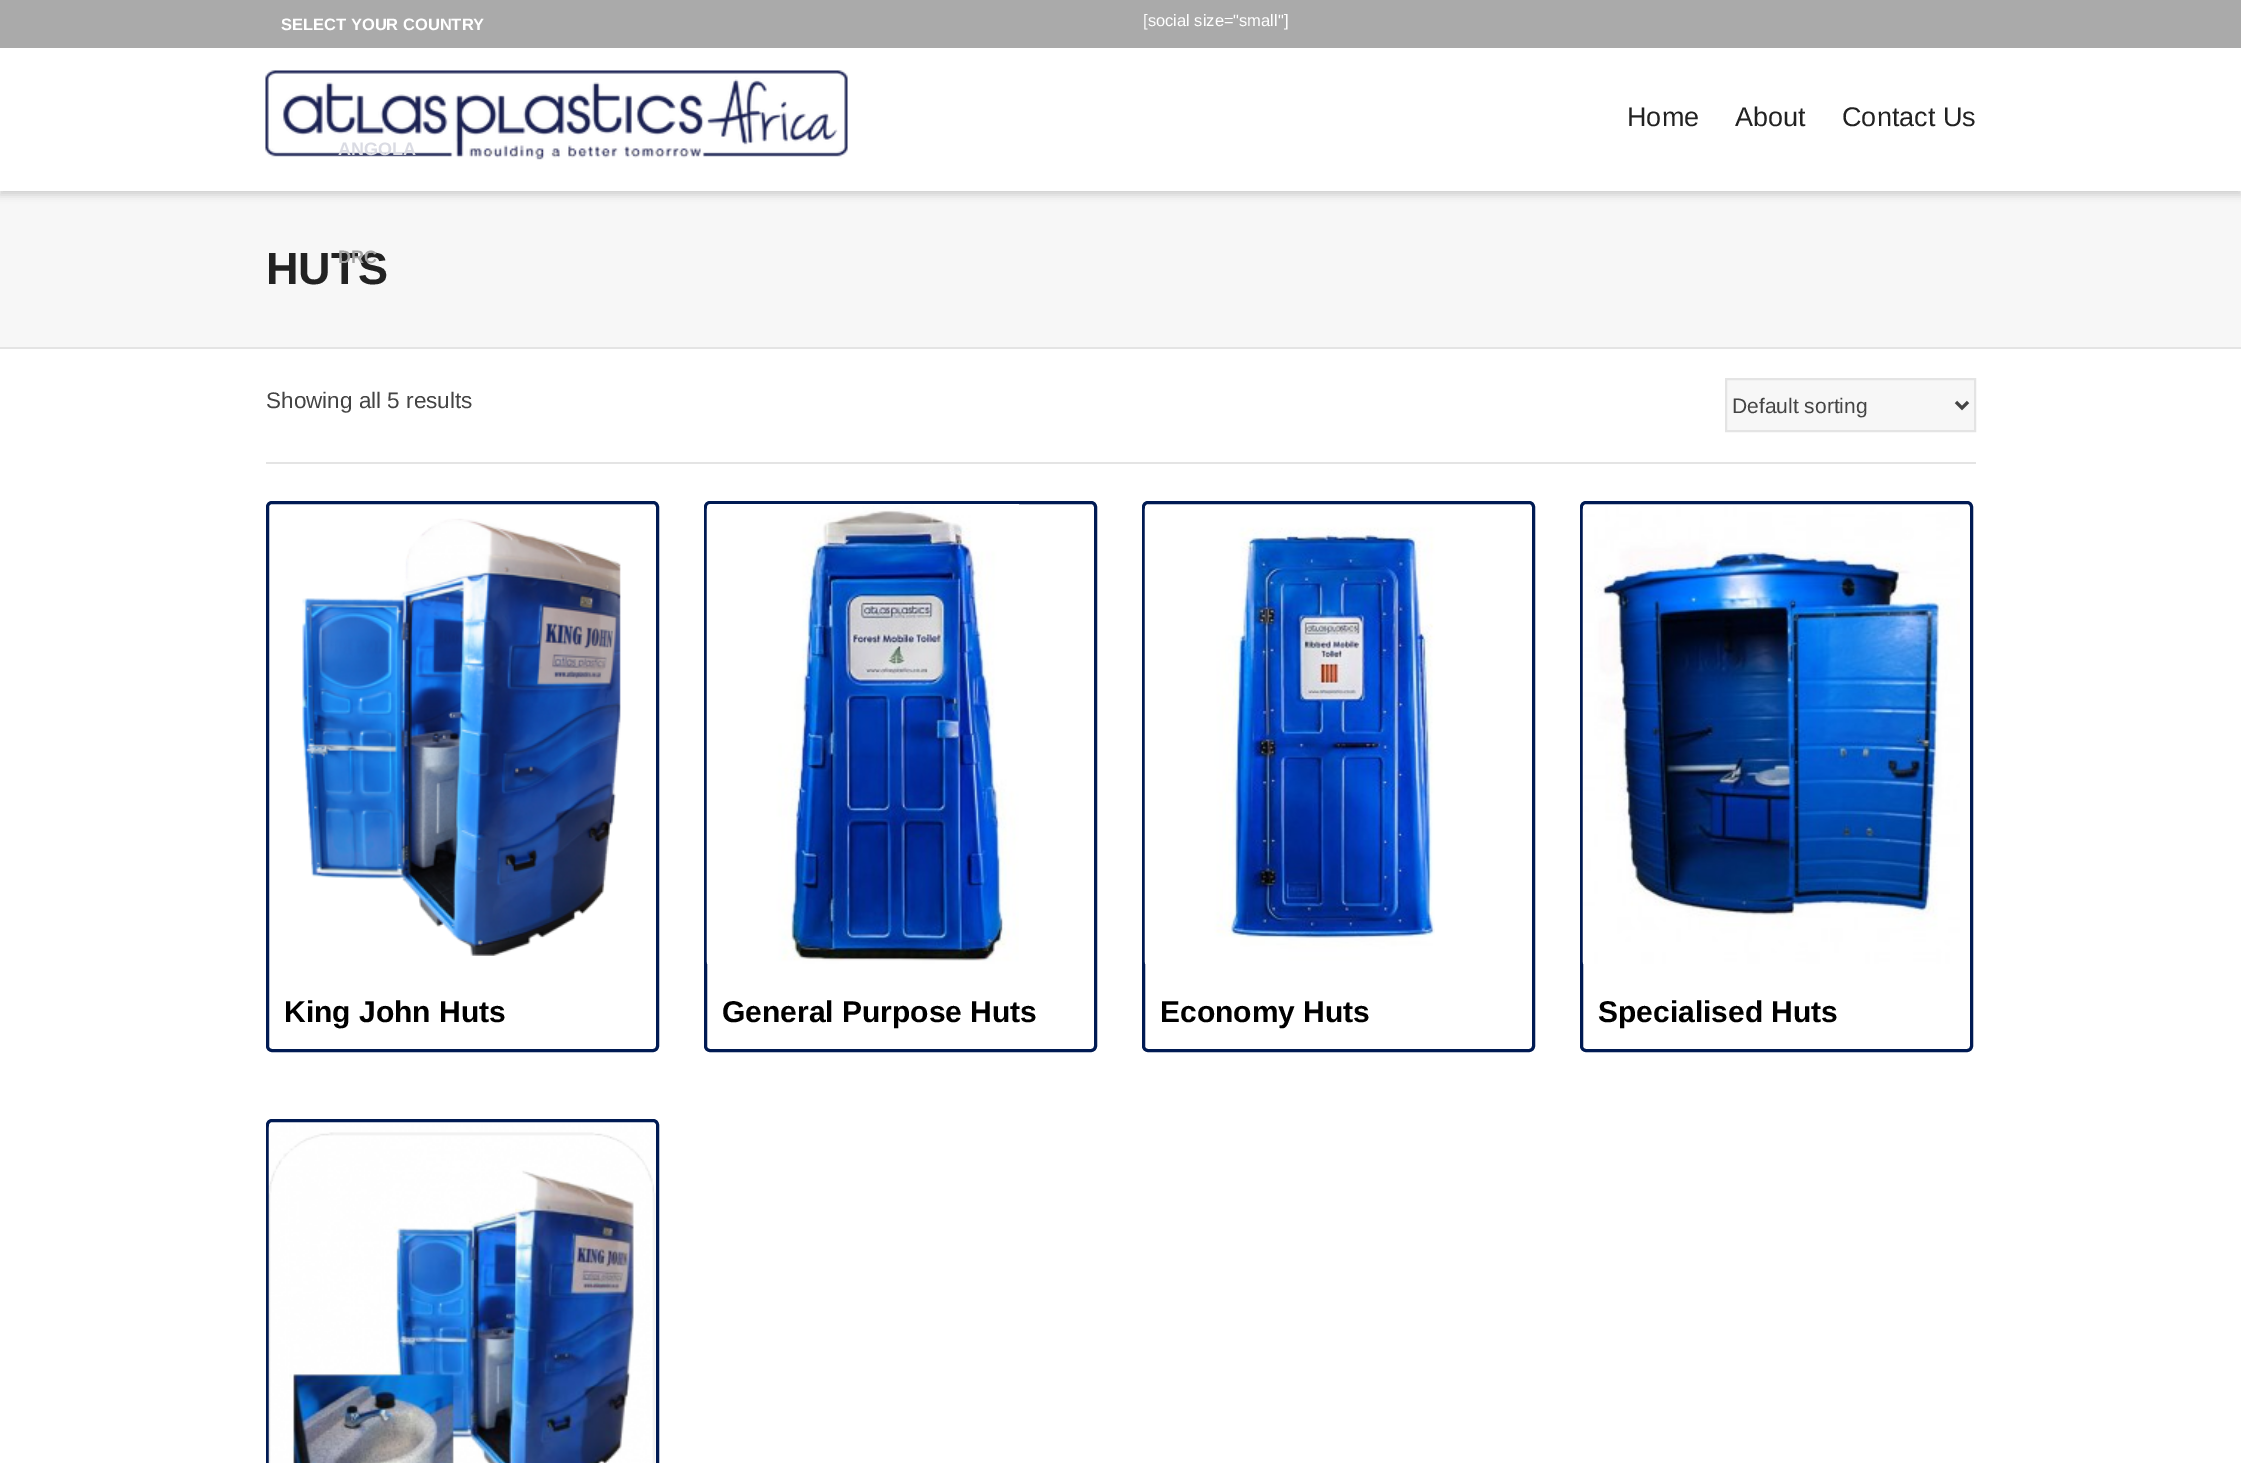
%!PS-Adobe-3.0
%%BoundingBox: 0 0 2241 1463
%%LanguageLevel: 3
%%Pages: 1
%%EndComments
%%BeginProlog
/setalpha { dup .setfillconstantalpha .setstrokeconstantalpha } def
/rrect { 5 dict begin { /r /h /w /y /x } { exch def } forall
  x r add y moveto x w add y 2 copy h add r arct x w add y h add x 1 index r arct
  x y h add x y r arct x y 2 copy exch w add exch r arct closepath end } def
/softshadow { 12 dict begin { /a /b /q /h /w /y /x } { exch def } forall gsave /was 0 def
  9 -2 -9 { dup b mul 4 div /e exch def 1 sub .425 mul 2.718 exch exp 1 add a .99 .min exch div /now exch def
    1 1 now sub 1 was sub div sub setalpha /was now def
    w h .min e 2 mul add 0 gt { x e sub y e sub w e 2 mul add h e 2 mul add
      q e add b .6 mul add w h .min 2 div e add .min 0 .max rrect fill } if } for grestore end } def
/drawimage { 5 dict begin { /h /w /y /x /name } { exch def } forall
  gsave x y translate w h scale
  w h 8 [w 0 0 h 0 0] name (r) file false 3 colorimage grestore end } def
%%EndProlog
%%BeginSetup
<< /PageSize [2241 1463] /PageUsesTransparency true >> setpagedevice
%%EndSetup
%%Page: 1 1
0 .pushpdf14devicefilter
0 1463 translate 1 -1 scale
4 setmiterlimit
1 setgray
0 0 2241 1463 rectfill
0.969 setgray
0 191 2241 156 rectfill
0 setgray
0 53 2241 142 0 4 0.1 softshadow
0 53 2241 142 0 4 0.05 softshadow
0.667 setgray
0 0 2241 48 rectfill
1 setgray
0 48 2241 143 rectfill
(images/1.raw) 265 70 583 90 drawimage
0.894 setgray
0 347 2241 2 rectfill
0.969 setgray
newpath 1726 379 moveto 1975 379 lineto 1975 431 lineto 1726 431 lineto closepath gsave fill grestore
0.894 setgray
2 setlinewidth
stroke
0.267 setgray
3 setlinewidth
newpath 1956 402 moveto 1962 408 lineto 1968 402 lineto stroke
0.894 setgray
266 462 1710 2 rectfill
0 0.102 0.325 setrgbcolor
267.5 502.5 390 548 4.5 rrect stroke
(images/2.raw) 302 518 319 438 drawimage
705.5 502.5 390 548 4.5 rrect stroke
(images/3.raw) 706 504 313 460 drawimage
1143.5 502.5 390 548 4.5 rrect stroke
(images/4.raw) 1144 506 291 458 drawimage
1581.5 502.5 390 548 4.5 rrect stroke
(images/5.raw) 1582 506 378 458 drawimage
267.5 1120.5 390 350 4.5 rrect stroke
(images/6.raw) 268 1124 388 339 drawimage
/LiberationSans-Bold [16.5 0 0 -16.5 0 0] selectfont
1 setgray
281 30 moveto (SELECT YOUR COUNTRY) show
/LiberationSans-Bold [18 0 0 -18 0 0] selectfont
0.855 0.859 0.89 setrgbcolor
338 155 moveto (ANGOLA) show
/LiberationSans-Regular [16.5 0 0 -16.5 0 0] selectfont
1 setgray
1143 26 moveto ([social size="small"]) show
/LiberationSans-Regular [27 0 0 -27 0 0] selectfont
0.133 setgray
1627 126 moveto (Home) show
1735 126 moveto (About) show
1842 126 moveto (Contact Us) show
/LiberationSans-Bold [45 0 0 -45 0 0] selectfont
266 284 moveto (HUTS) show
/LiberationSans-Bold [18 0 0 -18 0 0] selectfont
0.639 setgray
338 263 moveto (DRC) show
/LiberationSans-Regular [22.5 0 0 -22.5 0 0] selectfont
0.267 setgray
266 408 moveto (Showing all 5 results) show
/LiberationSans-Regular [21 0 0 -21 0 0] selectfont
1732 413 moveto (Default sorting) show
/LiberationSans-Bold [30 0 0 -30 0 0] selectfont
0 setgray
284 1022 moveto (King John Huts) show
722 1022 moveto (General Purpose Huts) show
1160 1022 moveto (Economy Huts) show
1598 1022 moveto (Specialised Huts) show
.poppdf14devicefilter showpage
%%EOF
